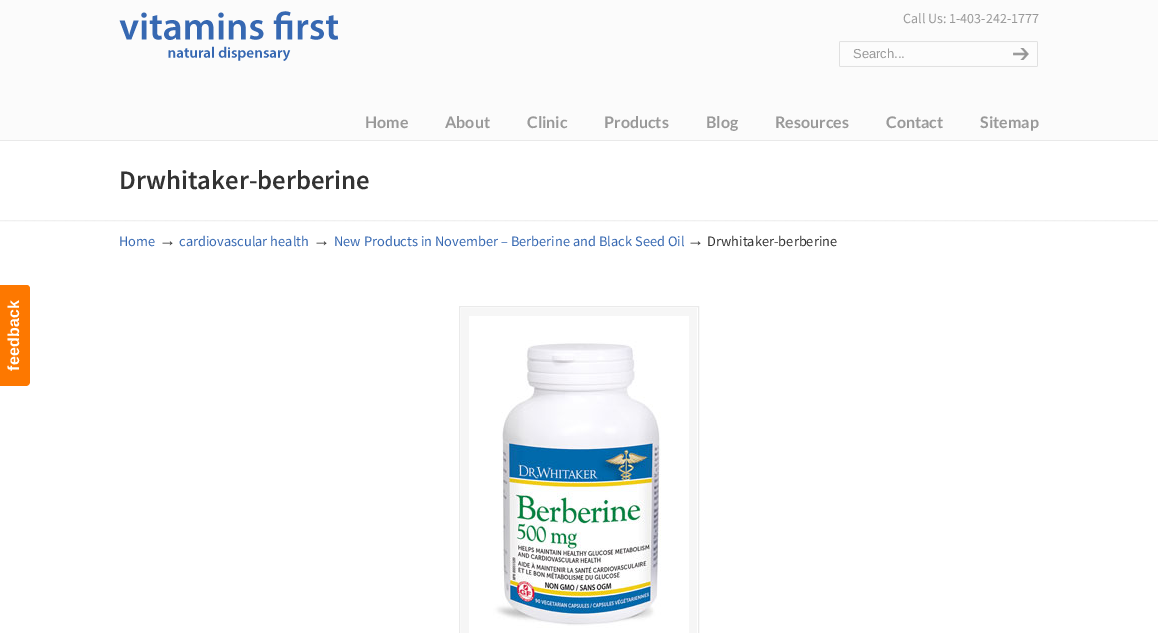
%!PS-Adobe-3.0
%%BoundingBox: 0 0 1158 633
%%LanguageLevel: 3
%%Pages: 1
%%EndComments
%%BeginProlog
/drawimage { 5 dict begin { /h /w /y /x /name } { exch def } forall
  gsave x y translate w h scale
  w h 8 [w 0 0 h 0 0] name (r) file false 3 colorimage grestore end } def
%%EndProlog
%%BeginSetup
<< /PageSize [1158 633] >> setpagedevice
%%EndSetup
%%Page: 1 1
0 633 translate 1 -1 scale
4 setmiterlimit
0.984 setgray
0 0 1158 633 rectfill
(images/1.raw) 119 11 219 50 drawimage
(images/2.raw) 839 41 159 26 drawimage
(images/3.raw) 998 41 40 26 drawimage
0.914 setgray
0 140 1158 1 rectfill
1 setgray
0 141 1158 492 rectfill
(images/4.raw) 0 220 1158 2 drawimage
0.965 setgray
461 308 236 325 rectfill
0.918 setgray
459.5 306.5 239 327 rectstroke
(images/5.raw) 469 316 220 317 drawimage
0.992 0.471 0 setrgbcolor
newpath -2 386 moveto -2 285 lineto 26 285 lineto 28 285 30 286 30 289 curveto 30 382 lineto 30 384 28 386 26 386 curveto closepath fill
/SourceSansPro-Regular [14 0 0 -14 0 0] selectfont
0.6 setgray
903 23 moveto (Call Us: 1-403-242-1777) show
/LiberationSans-Regular [13 0 0 -13 0 0] selectfont
853 58 moveto (Search...) show
/Lato-Bold [16 0 0 -16 0 0] selectfont
365 128 moveto (Home) show
445 128 moveto (About) show
527 128 moveto (Clinic) show
604 128 moveto (Products) show
706 128 moveto (Blog) show
775 128 moveto (Resources) show
886 128 moveto (Contact) show
980 128 moveto (Sitemap) show
/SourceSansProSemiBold-SemiBold [26.75 0 0 -26.75 0 0] selectfont
0.2 setgray
119 189 moveto (Drwhitaker-berberine) show
/SourceSansPro-Regular [14.4 0 0 -14.4 0 0] selectfont
0.212 0.408 0.698 setrgbcolor
119 246 moveto (Home) show
/LiberationSerif-Regular [17 0 0 -17 0 0] selectfont
0.2 setgray
159 246 moveto (→) show
/SourceSansPro-Regular [14.4 0 0 -14.4 0 0] selectfont
0.212 0.408 0.698 setrgbcolor
179 246 moveto (cardiovascular health) show
/LiberationSerif-Regular [17 0 0 -17 0 0] selectfont
0.2 setgray
313 246 moveto (→) show
/SourceSansPro-Regular [14.4 0 0 -14.4 0 0] selectfont
0.212 0.408 0.698 setrgbcolor
334 246 moveto (New Products in November – Berberine and Black Seed Oil) show
/LiberationSerif-Regular [17 0 0 -17 0 0] selectfont
0.2 setgray
687 246 moveto (→) show
/SourceSansPro-Regular [14.4 0 0 -14.4 0 0] selectfont
707 246 moveto (Drwhitaker-berberine) show
/LiberationSans-Bold [16 0 0 -16 0 0] selectfont
1 setgray
gsave 19 371 translate -90 rotate 0 0 moveto 0.25 0 (feedback) ashow grestore
showpage
%%EOF
